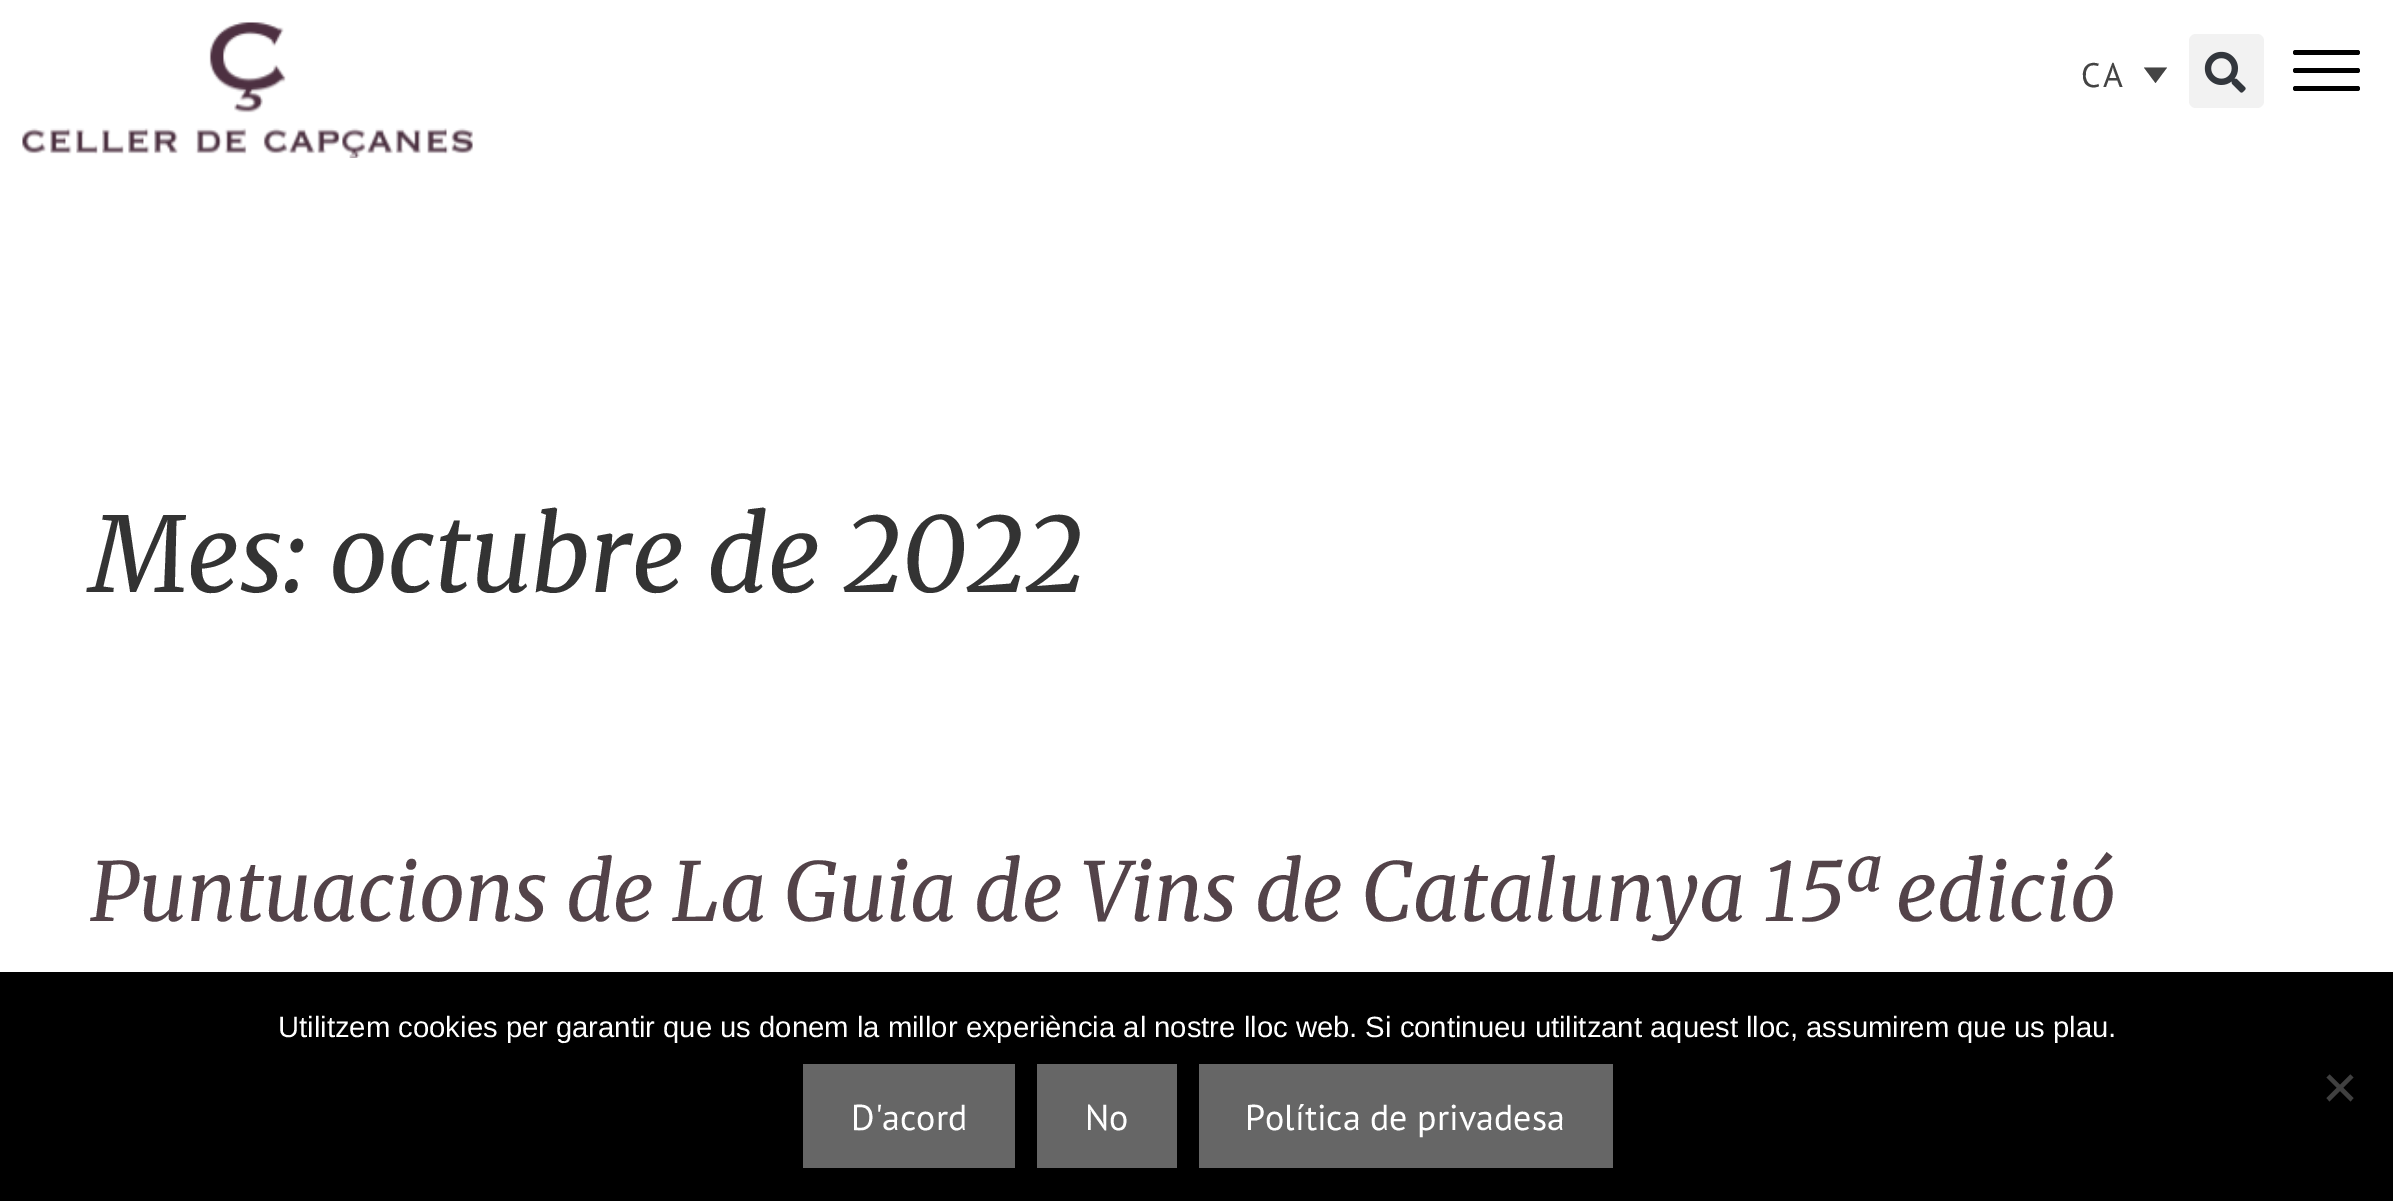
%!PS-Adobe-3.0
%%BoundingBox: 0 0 2393 1201
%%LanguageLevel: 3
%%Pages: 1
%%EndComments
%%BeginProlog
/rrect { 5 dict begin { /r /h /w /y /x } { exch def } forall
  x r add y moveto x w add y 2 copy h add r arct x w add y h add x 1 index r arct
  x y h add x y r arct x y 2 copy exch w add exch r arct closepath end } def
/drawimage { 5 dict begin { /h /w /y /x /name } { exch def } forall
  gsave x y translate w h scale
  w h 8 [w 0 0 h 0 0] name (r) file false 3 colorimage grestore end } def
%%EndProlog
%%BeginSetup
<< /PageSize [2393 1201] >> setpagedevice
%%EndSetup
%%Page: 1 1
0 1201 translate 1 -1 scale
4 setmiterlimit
1 setgray
0 0 2393 1201 rectfill
(images/1.raw) 22 22 451 136 drawimage
0.267 setgray
newpath 2144 67.5 moveto 2167 67.5 lineto 2155.5 83 lineto closepath fill
0.949 setgray
2189 34 75 74 7 rrect fill
(images/2.raw) 2204 51 42 42 drawimage
0 setgray
2293 68 67 5 2.5 rrect fill
2293 50 67 5 2.5 rrect fill
2293 86 67 5 2.5 rrect fill
0 972 2393 229 rectfill
0.251 setgray
newpath 2350.5 1074.5 moveto 2353.5 1077.5 lineto 2329.5 1101.5 lineto 2326.5 1098 lineto closepath fill
newpath 2326.5 1077.5 moveto 2329.5 1074.5 lineto 2353.5 1098 lineto 2350.5 1101.5 lineto closepath fill
0.4 setgray
803 1064 212 104 rectfill
1037 1064 140 104 rectfill
1199 1064 414 104 rectfill
/PTSans-Regular [34 0 0 -34 0 0] selectfont
0.267 setgray
2081 87 moveto 3 0 (CA) ashow
/Merriweather-Italic [103.5 0 0 -103.5 0 0] selectfont
0.2 setgray
90 592 moveto (Mes: octubre de 2022) show
/Merriweather-Italic [81 0 0 -81 0 0] selectfont
0.325 0.263 0.286 setrgbcolor
90 921 moveto (Puntuacions de La Guia de Vins de Catalunya 15ª edició) show
/LiberationSans-Regular [29.25 0 0 -29.25 0 0] selectfont
1 setgray
278 1037 moveto (Utilitzem cookies per garantir que us donem la millor experiència al nostre lloc web. Si continueu utilitzant aquest lloc, assumirem que us plau.) show
/PTSans-Regular [36 0 0 -36 0 0] selectfont
851 1130 moveto (D'acord) show
1085 1130 moveto (No) show
1245 1130 moveto (Política de privadesa) show
showpage
%%EOF
